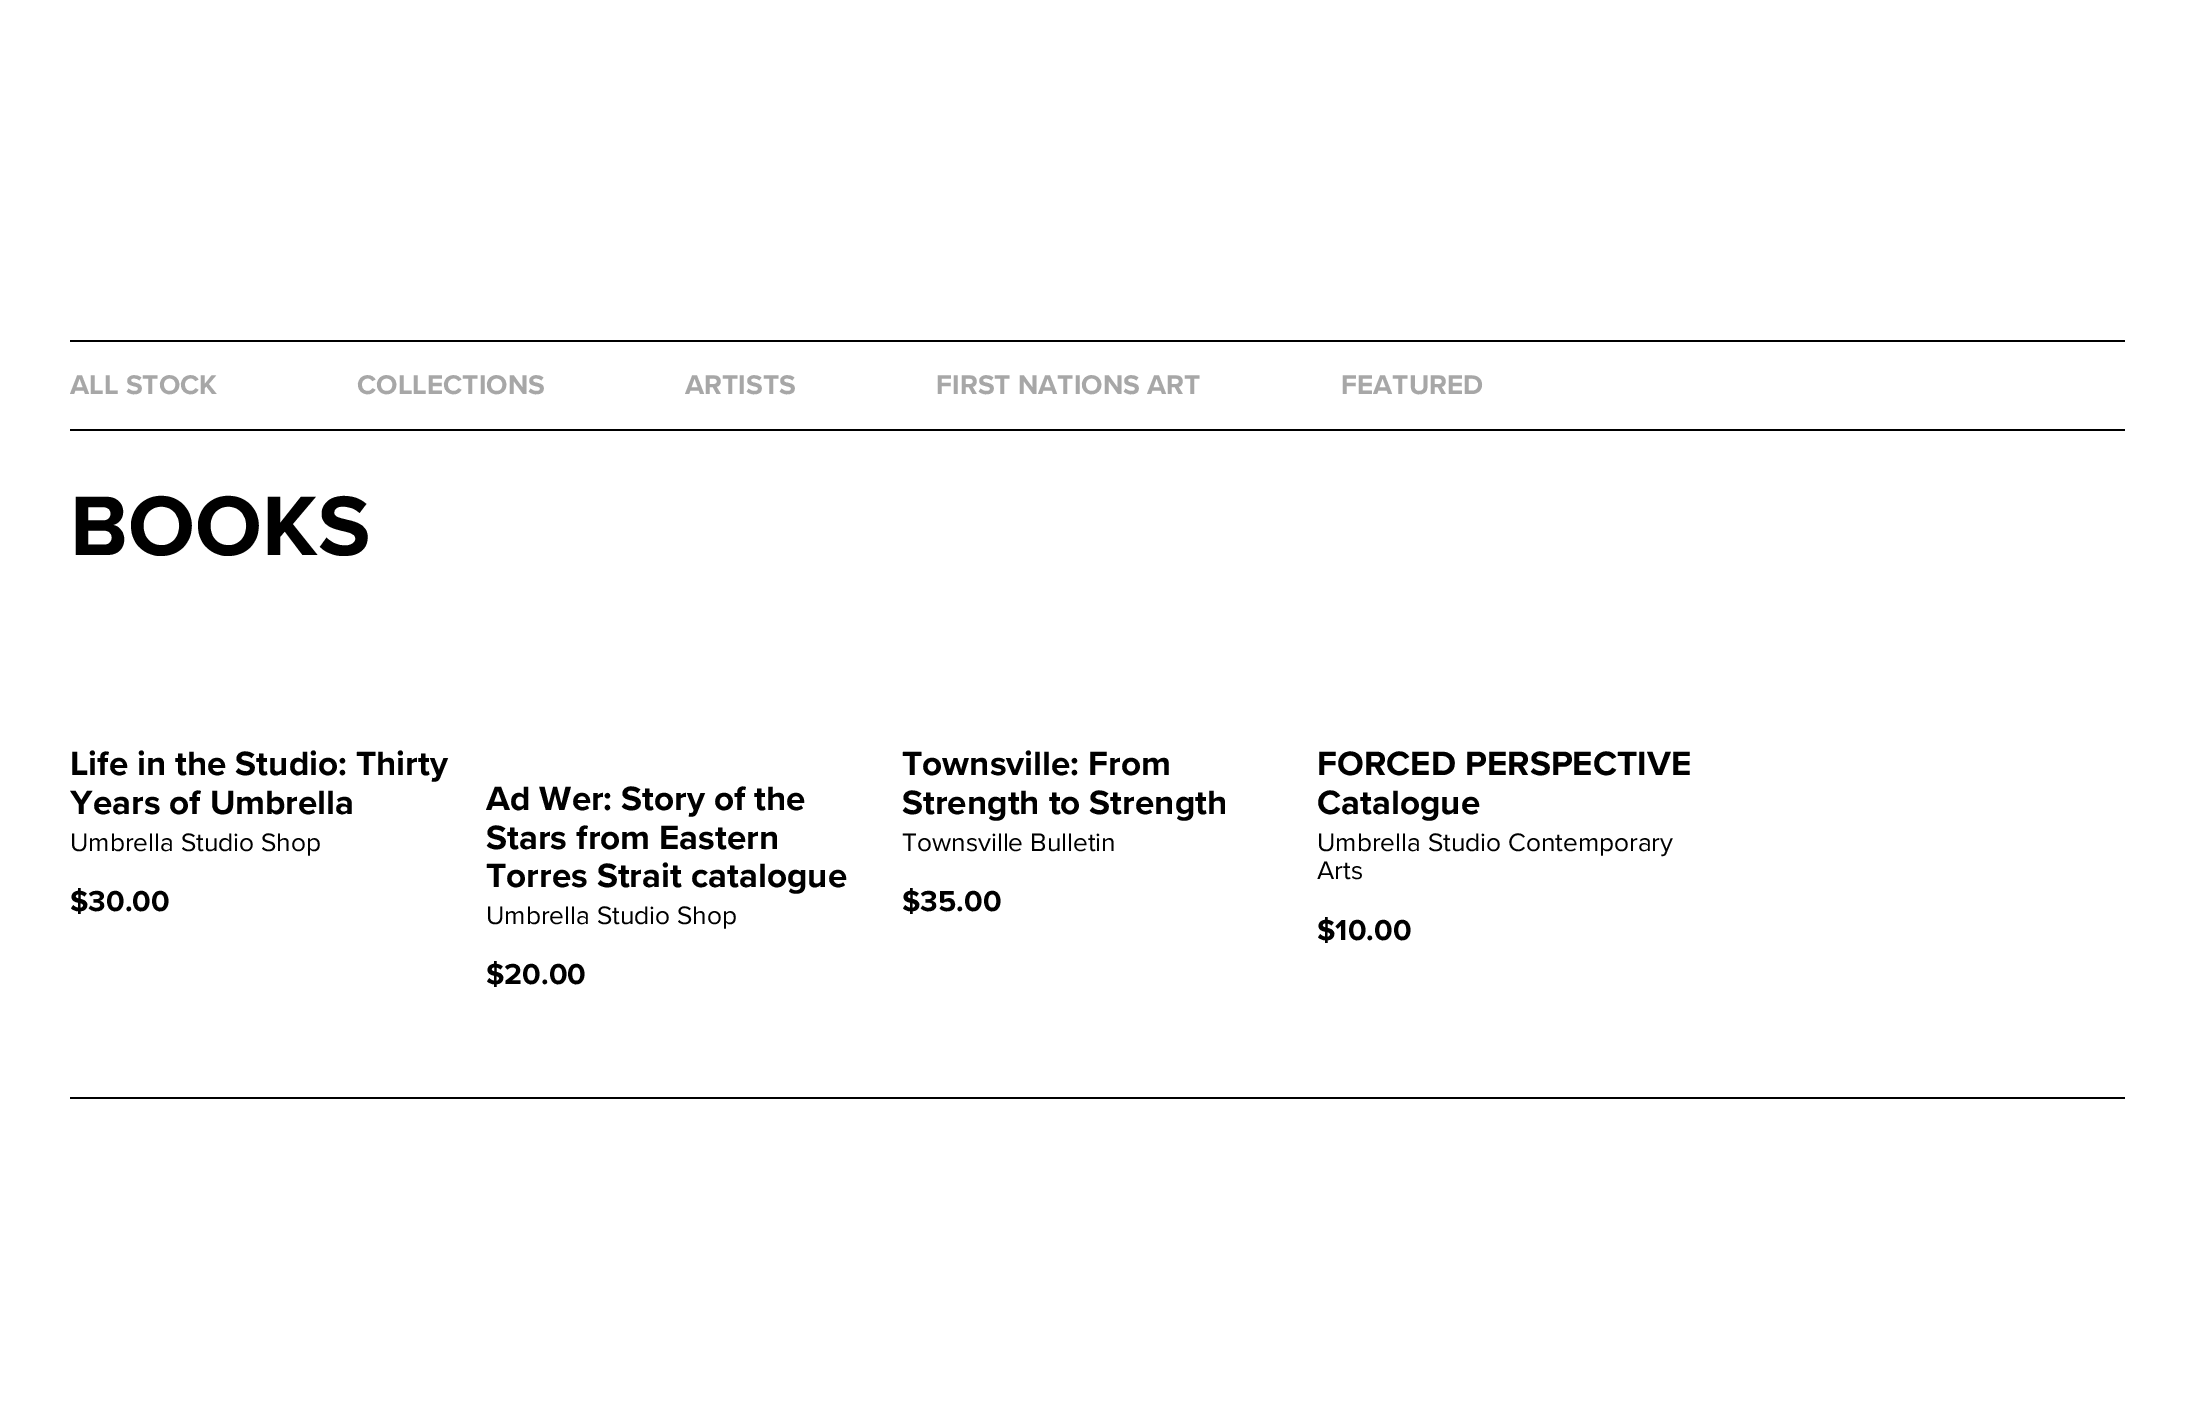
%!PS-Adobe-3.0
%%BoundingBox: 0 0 2193 1403
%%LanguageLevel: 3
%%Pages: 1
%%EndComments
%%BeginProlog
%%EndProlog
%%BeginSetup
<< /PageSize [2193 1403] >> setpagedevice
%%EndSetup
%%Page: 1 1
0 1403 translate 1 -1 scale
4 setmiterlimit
1 setgray
0 0 2193 1403 rectfill
0 setgray
70 340 2055 2 rectfill
70 429 2055 2 rectfill
70 1097 2055 2 rectfill
/ProximaNova-Bold [28 0 0 -28 0 0] selectfont
0.655 setgray
70 394 moveto (ALL STOCK) show
357 394 moveto (COLLECTIONS) show
685 394 moveto (ARTISTS) show
936 394 moveto (FIRST NATIONS ART) show
1341 394 moveto (FEATURED) show
/ProximaNova-Bold [87.5 0 0 -87.5 0 0] selectfont
0 setgray
70 555 moveto (BOOKS) show
/ProximaNova-Bold [35 0 0 -35 0 0] selectfont
70 775 moveto (Life in the Studio: Thirty) show
70 814 moveto (Years of Umbrella) show
/ProximaNova-Regular [26.25 0 0 -26.25 0 0] selectfont
70 851 moveto (Umbrella Studio Shop) show
/ProximaNova-Bold [30 0 0 -30 0 0] selectfont
70 911 moveto ($30.00) show
/ProximaNova-Bold [35 0 0 -35 0 0] selectfont
486 810 moveto (Ad Wer: Story of the) show
486 849 moveto (Stars from Eastern) show
486 887 moveto (Torres Strait catalogue) show
/ProximaNova-Regular [26.25 0 0 -26.25 0 0] selectfont
486 924 moveto (Umbrella Studio Shop) show
/ProximaNova-Bold [30 0 0 -30 0 0] selectfont
486 984 moveto ($20.00) show
/ProximaNova-Bold [35 0 0 -35 0 0] selectfont
902 775 moveto (Townsville: From) show
902 814 moveto (Strength to Strength) show
/ProximaNova-Regular [26.25 0 0 -26.25 0 0] selectfont
902 851 moveto (Townsville Bulletin) show
/ProximaNova-Bold [30 0 0 -30 0 0] selectfont
902 911 moveto ($35.00) show
/ProximaNova-Bold [35 0 0 -35 0 0] selectfont
1317 775 moveto (FORCED PERSPECTIVE) show
1317 814 moveto (Catalogue) show
/ProximaNova-Regular [26.25 0 0 -26.25 0 0] selectfont
1317 851 moveto (Umbrella Studio Contemporary) show
1317 879 moveto (Arts) show
/ProximaNova-Bold [30 0 0 -30 0 0] selectfont
1317 940 moveto ($10.00) show
showpage
%%EOF
